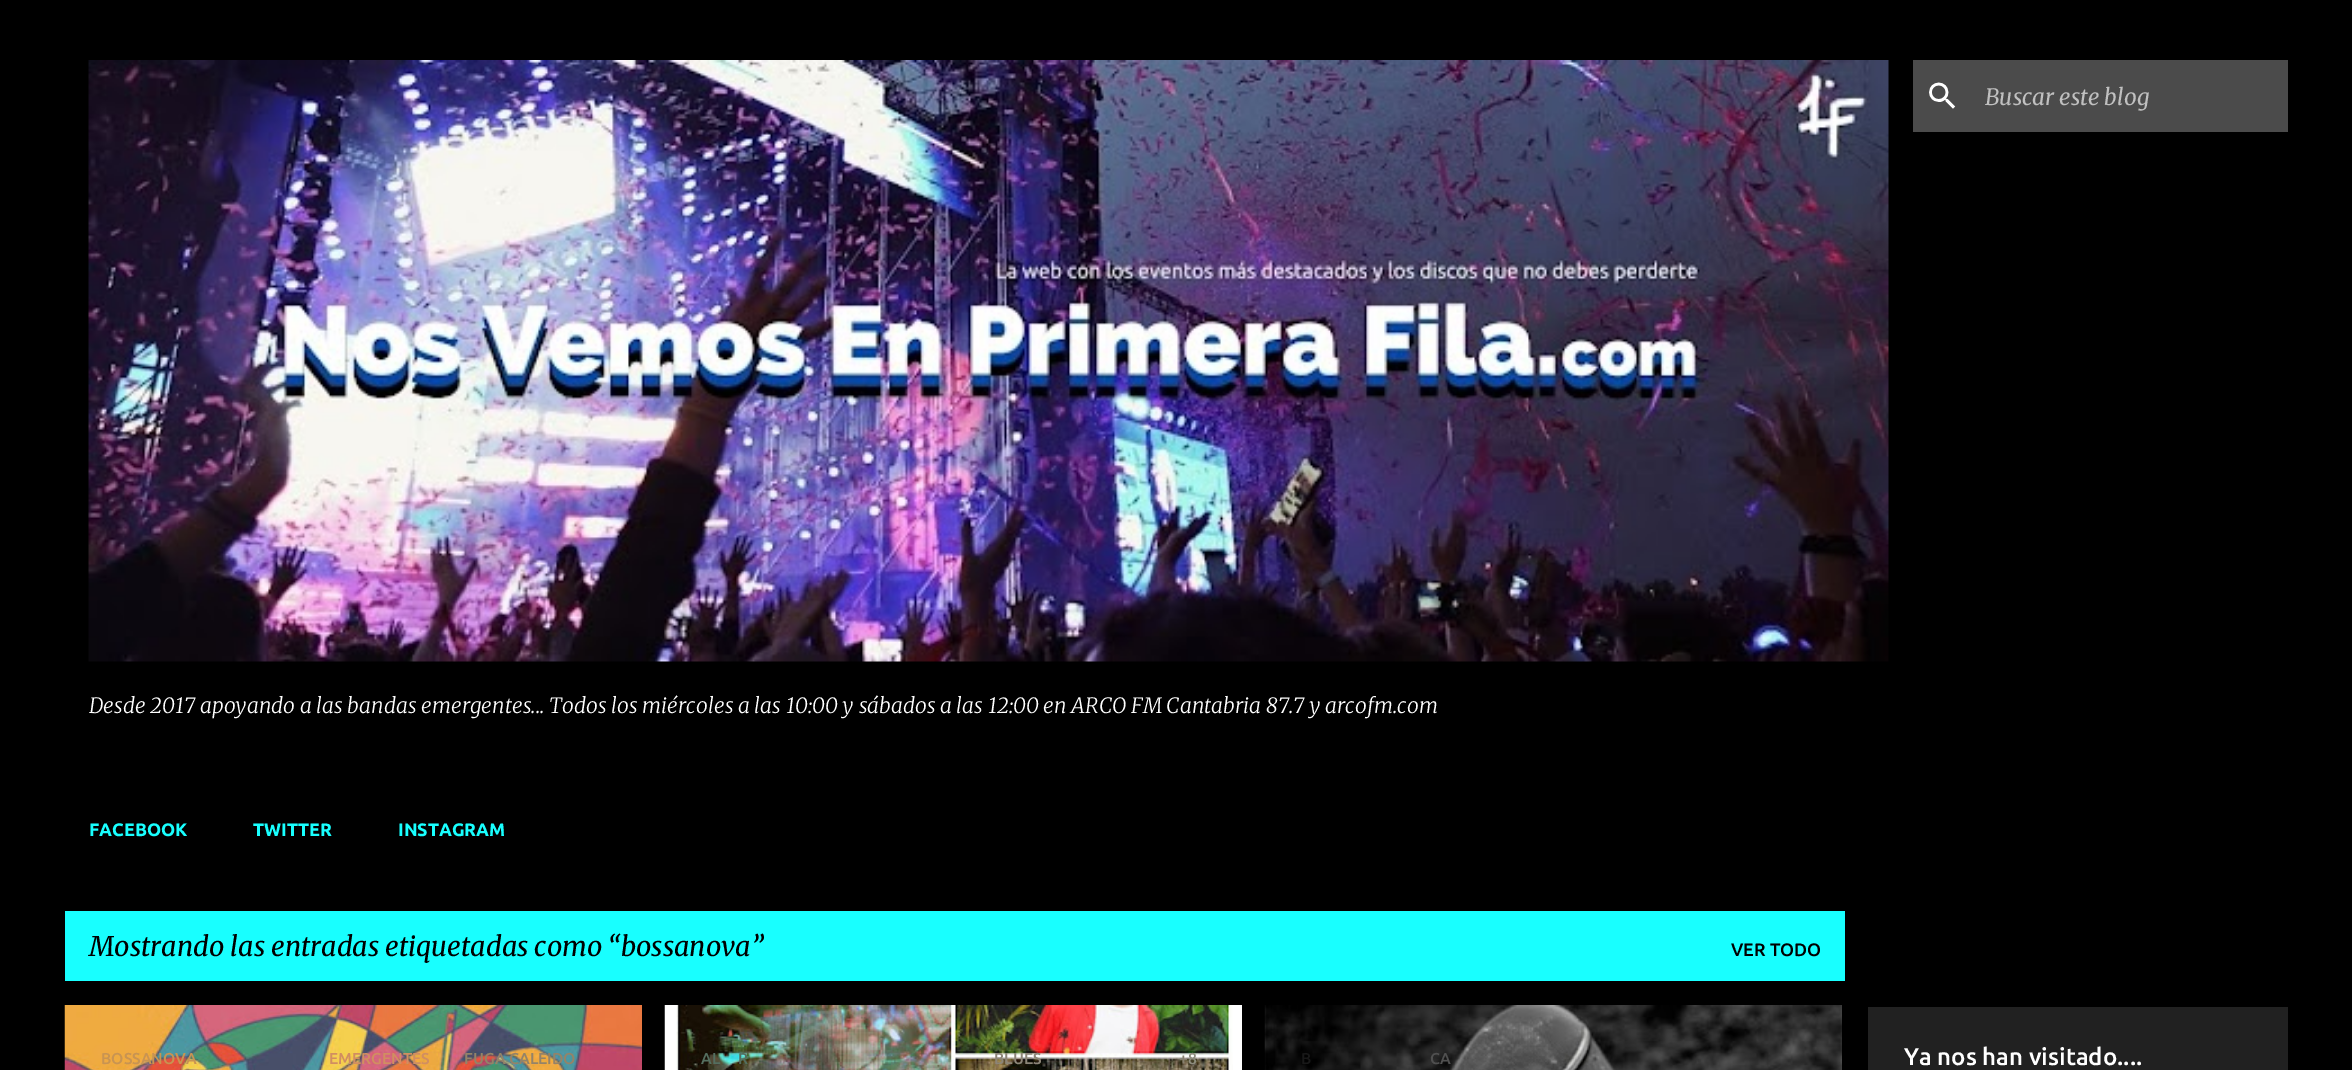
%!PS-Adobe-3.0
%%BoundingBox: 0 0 2352 1070
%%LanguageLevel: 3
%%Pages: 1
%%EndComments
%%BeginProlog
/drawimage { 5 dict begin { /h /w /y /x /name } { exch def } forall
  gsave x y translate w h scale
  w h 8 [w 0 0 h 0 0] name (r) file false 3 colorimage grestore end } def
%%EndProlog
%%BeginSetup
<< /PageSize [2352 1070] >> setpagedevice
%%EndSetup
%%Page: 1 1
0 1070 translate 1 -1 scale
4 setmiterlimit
0 setgray
0 0 2352 1070 rectfill
0.294 setgray
1913 60 375 72 rectfill
(images/1.raw) 1929 82 27 27 drawimage
(images/2.raw) 88 60 1801 602 drawimage
0.094 1 1 setrgbcolor
65 911 1780 70 rectfill
(images/3.raw) 64 1005 578 65 drawimage
1 setgray
1233 1005 9 65 rectfill
(images/4.raw) 664 1005 569 65 drawimage
(images/5.raw) 1264 1005 578 65 drawimage
0.129 setgray
1868 1007 420 63 rectfill
/Merriweather-Italic [22.5 0 0 -22.5 0 0] selectfont
0.753 setgray
1985 105 moveto (Buscar este blog) show
/Merriweather-LightItalic [21 0 0 -21 0 0] selectfont
1 setgray
89 713 moveto (Desde 2017 apoyando a las bandas emergentes... Todos los miércoles a las 10:00 y sábados a las 12:00 en ARCO FM Cantabria 87.7 y arcofm.com) show
/Ubuntu-Bold [18 0 0 -18 0 0] selectfont
0.094 1 1 setrgbcolor
89 836 moveto (FACEBOOK) show
253 836 moveto (TWITTER) show
398 836 moveto (INSTAGRAM) show
/Merriweather-Italic [27 0 0 -27 0 0] selectfont
0 setgray
89 956 moveto (Mostrando las entradas etiquetadas como “bossanova”) show
/Ubuntu-Medium [18 0 0 -18 0 0] selectfont
1731 956 moveto (VER TODO) show
/Ubuntu-Medium [15.75 0 0 -15.75 0 0] selectfont
0.784 0.58 0.322 setrgbcolor
101 1064 moveto (BOSSANOVA) show
0.82 0.557 0.38 setrgbcolor
329 1064 moveto (EMERGENTES) show
0.58 0.514 0.408 setrgbcolor
464 1064 moveto (FUGA CALEIDO) show
0.329 0.431 0.373 setrgbcolor
701 1064 moveto (AL) show
738 1064 moveto (R) show
0.549 0.522 0.467 setrgbcolor
994 1064 moveto (BLUES) show
0.525 0.498 0.431 setrgbcolor
1179 1064 moveto (+) show
0.557 0.553 0.494 setrgbcolor
1188 1064 moveto (8) show
0.094 setgray
1301 1064 moveto (B) show
0.314 setgray
1430 1064 moveto (CA) show
/Ubuntu-Medium [24 0 0 -24 0 0] selectfont
1 setgray
1904 1065 moveto (Ya nos han visitado....) show
showpage
%%EOF
